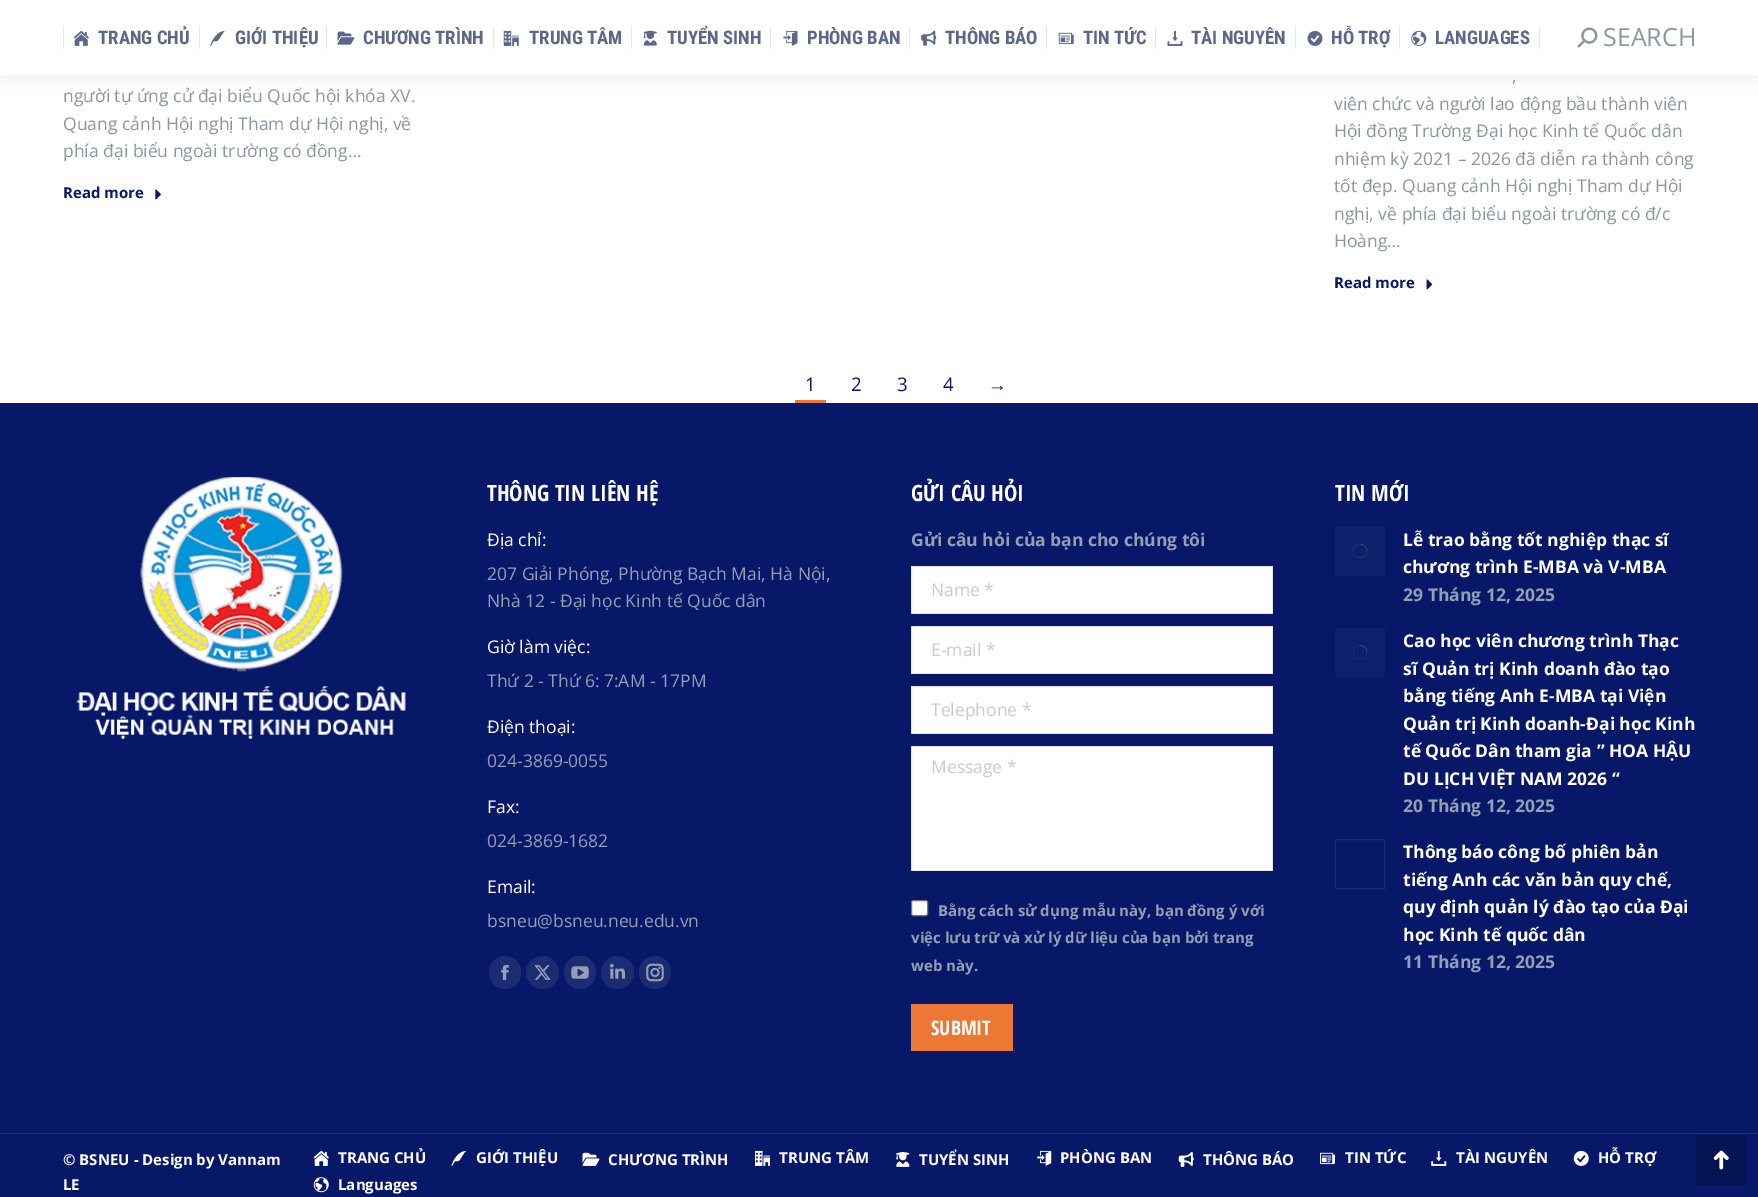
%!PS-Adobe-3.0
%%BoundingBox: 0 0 1758 1197
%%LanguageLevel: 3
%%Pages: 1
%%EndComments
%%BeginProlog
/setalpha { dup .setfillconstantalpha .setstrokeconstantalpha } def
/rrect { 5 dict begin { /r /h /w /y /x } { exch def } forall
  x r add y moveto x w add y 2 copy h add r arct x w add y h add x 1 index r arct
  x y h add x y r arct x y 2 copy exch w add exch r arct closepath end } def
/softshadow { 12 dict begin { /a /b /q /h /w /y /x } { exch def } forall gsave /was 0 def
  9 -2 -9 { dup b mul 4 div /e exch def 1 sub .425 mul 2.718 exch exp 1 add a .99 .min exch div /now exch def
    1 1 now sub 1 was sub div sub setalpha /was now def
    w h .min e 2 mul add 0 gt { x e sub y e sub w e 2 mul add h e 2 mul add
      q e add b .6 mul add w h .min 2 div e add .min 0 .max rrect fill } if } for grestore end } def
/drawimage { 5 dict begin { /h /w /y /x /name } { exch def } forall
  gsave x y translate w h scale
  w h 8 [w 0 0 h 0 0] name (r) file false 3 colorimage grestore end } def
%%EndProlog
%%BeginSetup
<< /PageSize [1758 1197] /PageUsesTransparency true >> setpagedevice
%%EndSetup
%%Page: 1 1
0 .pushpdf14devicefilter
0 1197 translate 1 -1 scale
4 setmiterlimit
1 setgray
0 0 1758 1197 rectfill
0 setgray
-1 -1 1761 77 0 9.5 0.07 softshadow
1 setgray
0 0 1758 75 rectfill
0.906 setgray
63 26 1 23 rectfill
(images/1.raw) 73 31 16 15 drawimage
199 26 1 23 rectfill
(images/2.raw) 210 30 15 16 drawimage
326 26 1 23 rectfill
(images/3.raw) 337 31 18 14 drawimage
493 26 1 23 rectfill
(images/4.raw) 503 30 16 16 drawimage
631 26 1 23 rectfill
(images/5.raw) 643 30 14 16 drawimage
770 26 1 23 rectfill
(images/6.raw) 783 30 15 16 drawimage
909 26 1 23 rectfill
(images/7.raw) 921 30 16 16 drawimage
1046 26 1 23 rectfill
(images/8.raw) 1058 32 16 13 drawimage
1155 26 1 23 rectfill
(images/9.raw) 1167 30 16 16 drawimage
1295 26 1 23 rectfill
(images/10.raw) 1307 31 16 15 drawimage
1399 26 1 23 rectfill
(images/11.raw) 1411 30 16 16 drawimage
1539 26 1 23 rectfill
(images/12.raw) 1577 27 21 21 drawimage
(images/13.raw) 155 189 6 11 drawimage
(images/14.raw) 1426 279 7 11 drawimage
0.925 0.471 0.204 setrgbcolor
795 400 31 3 rectfill
0.027 0.094 0.408 setrgbcolor
0 403 1758 794 rectfill
(images/15.raw) 76 477 330 262 drawimage
0.11 0.173 0.451 setrgbcolor
489 956 32 33 16 rrect fill
(images/16.raw) 501 965 8 15 drawimage
newpath 542.5 972.5 16.5 0 360 arc closepath fill
(images/17.raw) 534 965 17 15 drawimage
564 956 32 33 16 rrect fill
(images/18.raw) 571 966 18 13 drawimage
newpath 617.5 972.5 16.5 0 360 arc closepath fill
(images/19.raw) 610 963 15 16 drawimage
639 956 32 33 16 rrect fill
(images/20.raw) 646 963 18 19 drawimage
1 setgray
911 566 362 48 1 rrect fill
0.12 setalpha
0.2 setgray
911.5 566.5 361 47 rectstroke
1 setalpha
1 setgray
911 626 362 48 1 rrect fill
0.12 setalpha
0.2 setgray
911.5 626.5 361 47 rectstroke
1 setalpha
1 setgray
911 686 362 48 1 rrect fill
0.12 setalpha
0.2 setgray
911.5 686.5 361 47 rectstroke
1 setalpha
1 setgray
911 746 362 125 1 rrect fill
0.12 setalpha
0.2 setgray
911.5 746.5 361 124 rectstroke
1 setalpha
1 setgray
911.5 900.5 16 15 2 rrect gsave fill grestore
0.463 setgray
stroke
0.925 0.471 0.204 setrgbcolor
911 1004 102 47 rectfill
0.055 0.122 0.424 setrgbcolor
1335 526 50 50 rectfill
(images/21.raw) 1353 544 15 15 drawimage
1335 628 50 50 rectfill
(images/22.raw) 1353 645 15 15 drawimage
0.11 0.173 0.451 setrgbcolor
1335.5 839.5 49 49 rectstroke
0.145 0.204 0.478 setrgbcolor
0 1133 1758 1 rectfill
(images/23.raw) 313 1150 16 16 drawimage
(images/24.raw) 451 1151 15 15 drawimage
(images/25.raw) 582 1152 18 14 drawimage
(images/26.raw) 755 1150 15 16 drawimage
(images/27.raw) 896 1151 14 16 drawimage
(images/28.raw) 1037 1150 15 16 drawimage
(images/29.raw) 1178 1151 16 16 drawimage
(images/30.raw) 1320 1152 15 13 drawimage
(images/31.raw) 1431 1150 16 16 drawimage
(images/32.raw) 1573 1150 16 16 drawimage
(images/33.raw) 313 1177 16 16 drawimage
0.024 0.075 0.325 setrgbcolor
1696 1135 50 50 rectfill
(images/34.raw) 1713 1150 16 20 drawimage
/RobotoCondensed-Bold [18.75 0 0 -18.75 0 0] selectfont
0.361 0.408 0.537 setrgbcolor
98 44 moveto (TRANG CHỦ) show
235 44 moveto (GIỚI THIỆU) show
363 44 moveto (CHƯƠNG TRÌNH) show
529 44 moveto (TRUNG TÂM) show
667 44 moveto (TUYỂN SINH) show
807 44 moveto (PHÒNG BAN) show
945 44 moveto (THÔNG BÁO) show
1083 44 moveto (TIN TỨC) show
1191 44 moveto (TÀI NGUYÊN) show
1331 44 moveto (HỖ TRỢ) show
1435 44 moveto (LANGUAGES) show
/OpenSans-Regular [25 0 0 -25 0 0] selectfont
0.549 0.584 0.635 setrgbcolor
1603 46 moveto (SEARCH) show
/OpenSans-Regular [17.5 0 0 -17.5 0 0] selectfont
63 102 moveto (người tự ứng cử đại biểu Quốc hội khóa XV.) show
63 130 moveto (Quang cảnh Hội nghị Tham dự Hội nghị, về) show
63 157 moveto (phía đại biểu ngoài trường có đồng…) show
/OpenSans-Bold [15 0 0 -15 0 0] selectfont
0.027 0.094 0.408 setrgbcolor
63 198 moveto (Read more) show
/OpenSans-Regular [17.5 0 0 -17.5 0 0] selectfont
0.549 0.584 0.635 setrgbcolor
1512 82 moveto (,) show
1334 110 moveto (viên chức và người lao động bầu thành viên) show
1334 137 moveto (Hội đồng Trường Đại học Kinh tế Quốc dân) show
1334 165 moveto (nhiệm kỳ 2021 – 2026 đã diễn ra thành công) show
1334 192 moveto (tốt đẹp. Quang cảnh Hội nghị Tham dự Hội) show
1334 220 moveto (nghị, về phía đại biểu ngoài trường có đ/c) show
1334 247 moveto (Hoàng…) show
/OpenSans-Bold [15 0 0 -15 0 0] selectfont
0.027 0.094 0.408 setrgbcolor
1334 288 moveto (Read more) show
/OpenSans-Regular [18.75 0 0 -18.75 0 0] selectfont
805 391 moveto (1) show
851 391 moveto (2) show
897 391 moveto (3) show
943 391 moveto (4) show
/LiberationSans-Regular [18.75 0 0 -18.75 0 0] selectfont
988 391 moveto (→) show
/OpenSansCondensed-Bold [22.5 0 0 -22.5 0 0] selectfont
1 setgray
487 501 moveto (THÔNG TIN LIÊN HỆ) show
/OpenSans-Regular [17.5 0 0 -17.5 0 0] selectfont
487 546 moveto (Địa chỉ:) show
0.58 0.624 0.698 setrgbcolor
487 580 moveto (207 Giải Phóng, Phường Bạch Mai, Hà Nội,) show
487 607 moveto (Nhà 12 - Đại học Kinh tế Quốc dân) show
1 setgray
487 653 moveto (Giờ làm việc:) show
0.58 0.624 0.698 setrgbcolor
487 687 moveto (Thứ 2 - Thứ 6: 7:AM - 17PM) show
1 setgray
487 733 moveto (Điện thoại:) show
0.58 0.624 0.698 setrgbcolor
487 767 moveto (024-3869-0055) show
1 setgray
487 813 moveto (Fax:) show
0.58 0.624 0.698 setrgbcolor
487 847 moveto (024-3869-1682) show
1 setgray
487 893 moveto (Email:) show
0.58 0.624 0.698 setrgbcolor
487 927 moveto (bsneu@bsneu.neu.edu.vn) show
/OpenSansCondensed-Bold [22.5 0 0 -22.5 0 0] selectfont
1 setgray
911 501 moveto (GỬI CÂU HỎI) show
/OpenSans-Bold [17.5 0 0 -17.5 0 0] selectfont
0.58 0.624 0.698 setrgbcolor
911 546 moveto (Gửi câu hỏi của bạn cho chúng tôi) show
/OpenSans-Regular [17.5 0 0 -17.5 0 0] selectfont
0.776 0.792 0.82 setrgbcolor
931 596 moveto (Name *) show
931 656 moveto (E-mail *) show
931 716 moveto (Telephone *) show
931 773 moveto (Message *) show
/OpenSans-Bold [15 0 0 -15 0 0] selectfont
0.58 0.624 0.698 setrgbcolor
938 916 moveto (Bằng cách sử dụng mẫu này, bạn đồng ý với) show
911 943 moveto (việc lưu trữ và xử lý dữ liệu của bạn bởi trang) show
911 971 moveto (web này.) show
/OpenSansCondensed-Bold [20 0 0 -20 0 0] selectfont
1 setgray
931 1035 moveto (SUBMIT) show
/OpenSansCondensed-Bold [22.5 0 0 -22.5 0 0] selectfont
1335 501 moveto (TIN MỚI) show
/OpenSans-Bold [17.5 0 0 -17.5 0 0] selectfont
1403 546 moveto (Lễ trao bằng tốt nghiệp thạc sĩ) show
1403 573 moveto (chương trình E-MBA và V-MBA) show
0.58 0.624 0.698 setrgbcolor
1403 601 moveto (29 Tháng 12, 2025) show
1 setgray
1403 647 moveto (Cao học viên chương trình Thạc) show
1403 675 moveto (sĩ Quản trị Kinh doanh đào tạo) show
1403 702 moveto (bằng tiếng Anh E-MBA tại Viện) show
1403 730 moveto (Quản trị Kinh doanh-Đại học Kinh) show
1403 757 moveto (tế Quốc Dân tham gia ” HOA HẬU) show
1403 785 moveto (DU LỊCH VIỆT NAM 2026 “) show
0.58 0.624 0.698 setrgbcolor
1403 812 moveto (20 Tháng 12, 2025) show
1 setgray
1403 858 moveto (Thông báo công bố phiên bản) show
1403 886 moveto (tiếng Anh các văn bản quy chế,) show
1403 913 moveto (quy định quản lý đào tạo của Đại) show
1403 941 moveto (học Kinh tế quốc dân) show
0.58 0.624 0.698 setrgbcolor
1403 968 moveto (11 Tháng 12, 2025) show
/OpenSans-Bold [15 0 0 -15 0 0] selectfont
1 setgray
63 1165 moveto (© BSNEU - Design by Vannam) show
63 1190 moveto (LE) show
338 1163 moveto (TRANG CHỦ) show
476 1163 moveto (GIỚI THIỆU) show
608 1165 moveto (CHƯƠNG TRÌNH) show
779 1163 moveto (TRUNG TÂM) show
919 1165 moveto (TUYỂN SINH) show
1060 1163 moveto (PHÒNG BAN) show
1203 1165 moveto (THÔNG BÁO) show
1345 1163 moveto (TIN TỨC) show
1456 1163 moveto (TÀI NGUYÊN) show
1598 1163 moveto (HỖ TRỢ) show
338 1190 moveto (Languages) show
.poppdf14devicefilter showpage
%%EOF
